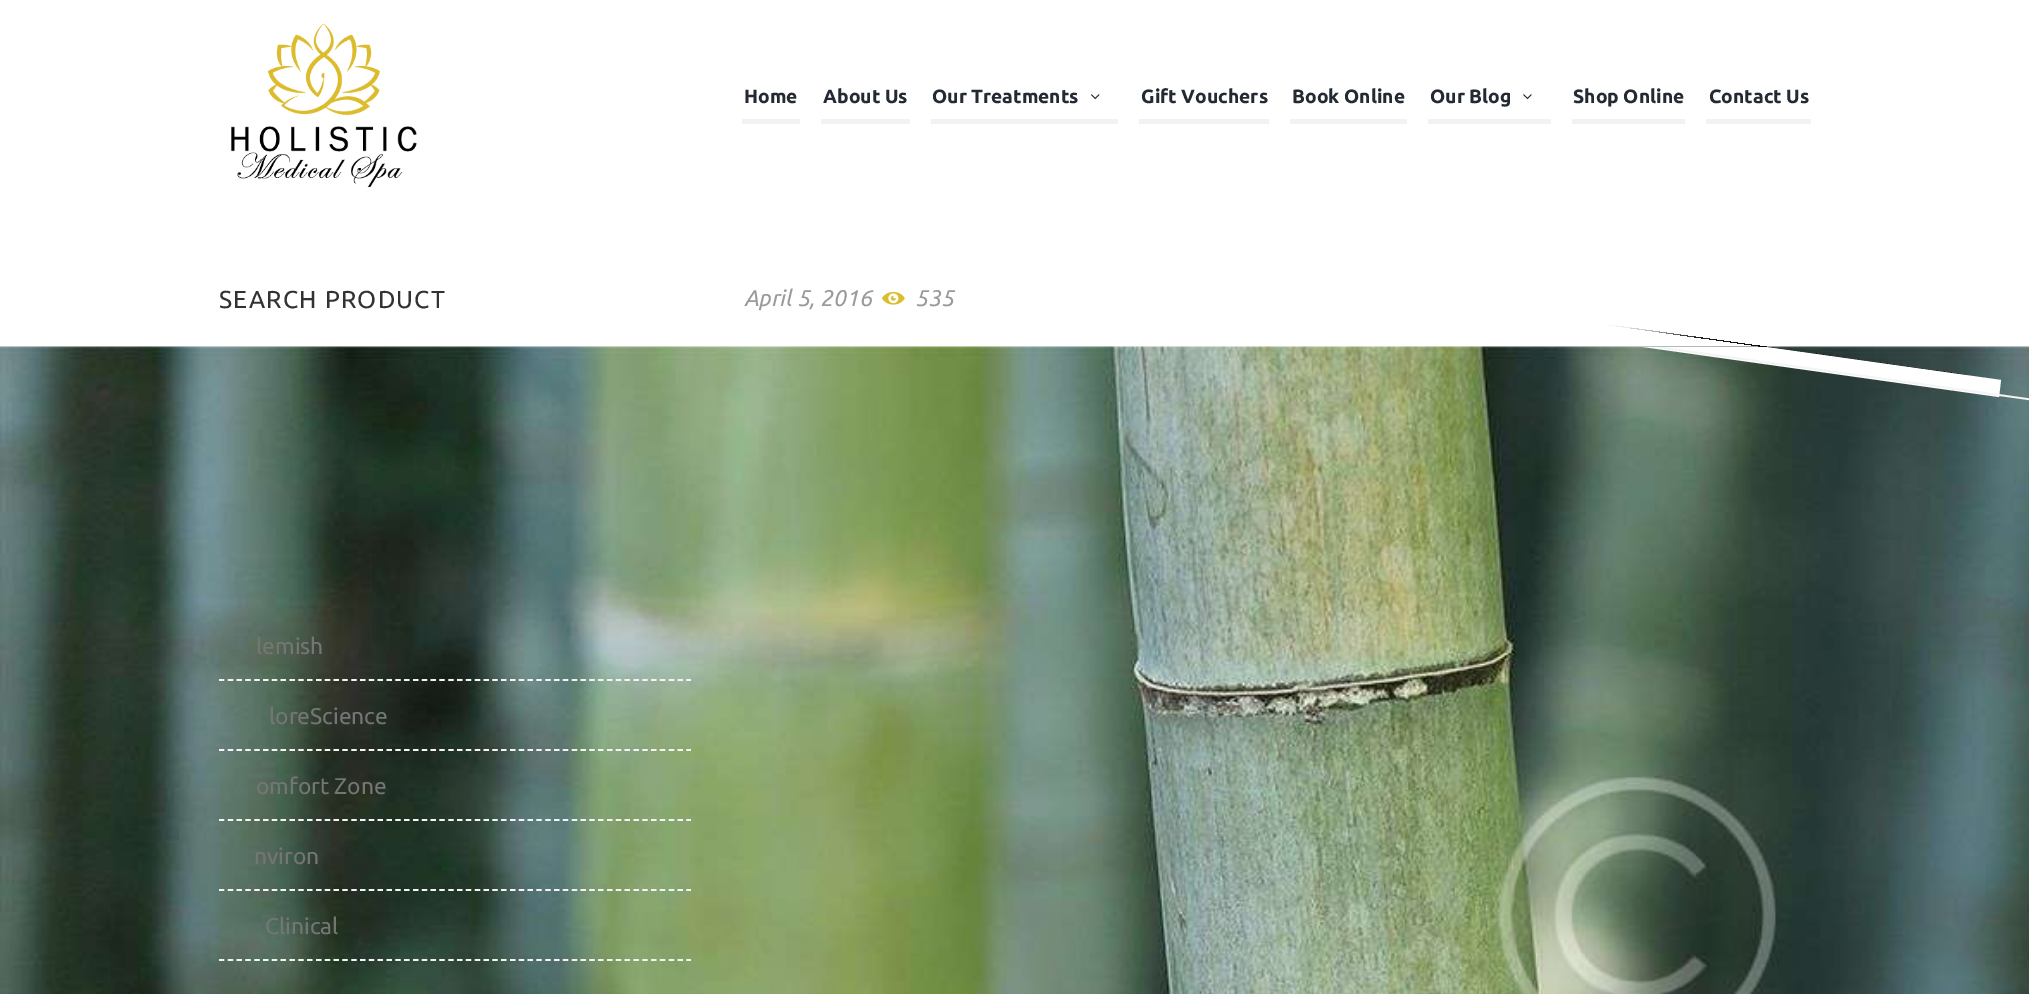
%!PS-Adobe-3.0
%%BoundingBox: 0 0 2029 994
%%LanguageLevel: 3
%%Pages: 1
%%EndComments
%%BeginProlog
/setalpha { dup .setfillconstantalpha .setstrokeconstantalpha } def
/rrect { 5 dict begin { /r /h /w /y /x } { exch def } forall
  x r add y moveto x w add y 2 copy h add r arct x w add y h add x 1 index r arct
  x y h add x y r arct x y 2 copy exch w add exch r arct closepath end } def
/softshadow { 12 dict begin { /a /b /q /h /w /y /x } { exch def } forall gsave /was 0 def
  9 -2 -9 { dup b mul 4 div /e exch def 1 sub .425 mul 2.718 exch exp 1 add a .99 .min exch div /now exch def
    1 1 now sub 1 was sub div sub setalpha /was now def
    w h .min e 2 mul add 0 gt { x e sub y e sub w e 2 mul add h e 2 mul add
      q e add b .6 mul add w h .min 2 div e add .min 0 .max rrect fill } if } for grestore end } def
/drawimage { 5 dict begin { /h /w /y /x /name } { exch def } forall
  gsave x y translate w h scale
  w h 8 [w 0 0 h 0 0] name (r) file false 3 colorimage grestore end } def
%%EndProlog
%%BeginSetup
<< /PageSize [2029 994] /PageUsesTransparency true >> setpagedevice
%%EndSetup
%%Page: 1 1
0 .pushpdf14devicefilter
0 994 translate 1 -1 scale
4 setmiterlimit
1 setgray
0 0 2029 994 rectfill
(images/1.raw) 231 23 186 165 drawimage
0.949 setgray
742 119 58 5 rectfill
821 119 89 5 rectfill
931 119 187 5 rectfill
(images/2.raw) 1091 94 9 6 drawimage
1139 119 130 5 rectfill
1290 119 117 5 rectfill
1428 119 123 5 rectfill
(images/3.raw) 1523 94 9 6 drawimage
1572 119 113 5 rectfill
1706 119 105 5 rectfill
(images/5.raw) 0 346 2029 648 drawimage
0.957 setgray
1.8 setlinewidth
[5.25 3.57] 0 setdash
newpath 219 680 moveto 691 680 lineto stroke
newpath 219 750 moveto 691 750 lineto stroke
newpath 219 820 moveto 691 820 lineto stroke
newpath 219 890 moveto 691 890 lineto stroke
newpath 219 960 moveto 691 960 lineto stroke
(images/4.raw) 882 291 23 14 drawimage
gsave
newpath 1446 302 moveto 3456.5 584.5 lineto 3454 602 lineto 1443.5 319.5 lineto closepath clip newpath
newpath 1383 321 moveto 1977 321 lineto 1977 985 lineto 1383 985 lineto closepath 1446 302 moveto 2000.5 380 lineto 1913 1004 lineto 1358.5 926 lineto closepath eoclip newpath
0 setgray
1398 336 564 634 0 4.5 0.3 softshadow
1398 336 564 634 0 4.5 0.3 softshadow
1398 336 564 634 0 4.5 0.3 softshadow
1398 336 564 634 0 4.5 0.3 softshadow
1398 336 564 634 0 4.5 0.3 softshadow
1398 336 564 634 0 4.5 0.3 softshadow
1398 336 564 634 0 4.5 0.3 softshadow
1398 336 564 634 0 4.5 0.3 softshadow
1398 336 564 634 0 4.5 0.3 softshadow
grestore
gsave
0 347 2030 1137 rectclip
1 setgray
newpath 1446 302 moveto 1444 319 lineto 1999 397 lineto 2001 380 lineto closepath fill
0.957 setgray
newpath 1444 316 moveto 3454 599 lineto 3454 600 lineto 1444 318 lineto closepath fill
grestore
/Ubuntu-Bold [19.25 0 0 -19.25 0 0] selectfont
0.137 0.165 0.204 setrgbcolor
744 103 moveto (Home) show
823 103 moveto (About Us) show
932 103 moveto (Our Treatments) show
1141 103 moveto (Gift Vouchers) show
1292 103 moveto (Book Online) show
1430 103 moveto (Our Blog) show
1573 103 moveto (Shop Online) show
1709 103 moveto (Contact Us) show
/Ubuntu-Regular [24.5 0 0 -24.5 0 0] selectfont
0.196 setgray
219 308 moveto 1.25 0 (SEARCH PRODUCT) ashow
/Ubuntu-Regular [22.75 0 0 -22.75 0 0] selectfont
0.459 setgray
256 654 moveto (lemish) show
269 724 moveto (loreScience) show
256 794 moveto (omfort Zone) show
254 864 moveto (nviron) show
265 934 moveto (Clinical) show
/Ubuntu-Italic [22.75 0 0 -22.75 0 0] selectfont
0.604 setgray
744 306 moveto (April 5, 2016) show
915 306 moveto (535) show
.poppdf14devicefilter showpage
%%EOF
